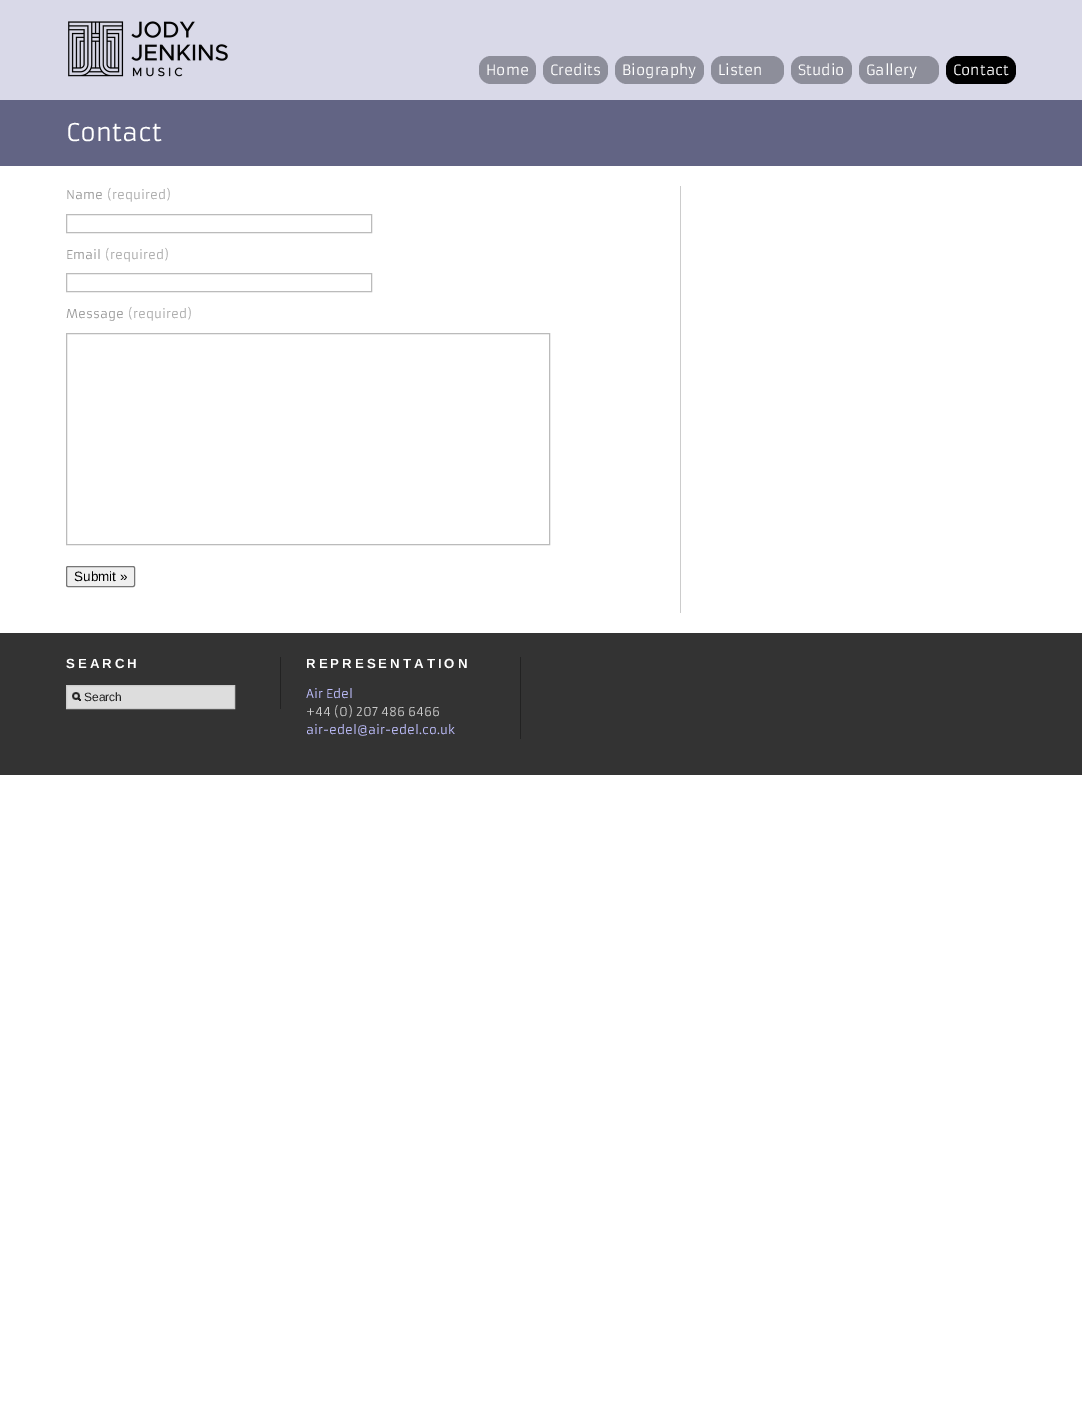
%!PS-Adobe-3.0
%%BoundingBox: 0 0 1082 1415
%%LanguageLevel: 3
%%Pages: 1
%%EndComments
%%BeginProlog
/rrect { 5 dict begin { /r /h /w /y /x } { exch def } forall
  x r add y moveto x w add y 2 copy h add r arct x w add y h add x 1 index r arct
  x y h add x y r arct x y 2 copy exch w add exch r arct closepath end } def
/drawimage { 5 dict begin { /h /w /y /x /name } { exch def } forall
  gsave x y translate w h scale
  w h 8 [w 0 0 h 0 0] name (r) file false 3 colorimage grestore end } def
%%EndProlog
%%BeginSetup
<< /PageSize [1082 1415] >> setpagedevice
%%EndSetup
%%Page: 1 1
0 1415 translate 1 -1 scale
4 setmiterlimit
1 setgray
0 0 1082 1415 rectfill
0.851 0.851 0.91 setrgbcolor
0 0 1082 100 rectfill
(images/1.raw) 68 21 160 56 drawimage
0.553 0.557 0.604 setrgbcolor
479 56 57 28 12 rrect fill
543 56 65 28 12 rrect fill
615 56 89 28 12 rrect fill
711 56 73 28 12 rrect fill
791 56 61 28 12 rrect fill
859 56 80 28 12 rrect fill
0 setgray
946 56 70 28 12 rrect fill
0.384 0.392 0.518 setrgbcolor
0 100 1082 66 rectfill
0.8 setgray
680 186 1 427 rectfill
0.733 setgray
66.5 214.5 305 18 rectstroke
66.5 273.5 305 18 rectstroke
66.5 333.5 483 211 rectstroke
0.937 setgray
66.5 566.5 68 20 1.5 rrect gsave fill grestore
0.463 setgray
stroke
0.2 setgray
0 633 1082 142 rectfill
0.133 setgray
280 657 1 52 rectfill
0.867 setgray
67 686 167 22 rectfill
(images/2.raw) 72 692 9 9 drawimage
0.8 setgray
66.5 685.5 168 23 rectstroke
0.133 setgray
520 657 1 82 rectfill
/Armata-Regular [14 0 0 -14 0 0] selectfont
1 setgray
486 75 moveto (Home) show
550 75 moveto (Credits) show
622 75 moveto (Biography) show
718 75 moveto (Listen) show
798 75 moveto (Studio) show
866 75 moveto (Gallery) show
953 75 moveto (Contact) show
/Armata-Regular [24 0 0 -24 0 0] selectfont
66 141 moveto (Contact) show
/Armata-Regular [12 0 0 -12 0 0] selectfont
0.6 setgray
66 199 moveto (Name) show
0.667 setgray
107 199 moveto (\(required\)) show
0.6 setgray
66 259 moveto (Email) show
0.667 setgray
105 259 moveto (\(required\)) show
0.6 setgray
66 318 moveto (Message) show
0.667 setgray
128 318 moveto (\(required\)) show
/LiberationSans-Regular [13.5 0 0 -13.5 0 0] selectfont
0 setgray
74 581 moveto (Submit ») show
/LiberationSans-Bold [13.25 0 0 -13.25 0 0] selectfont
1 setgray
66 668 moveto 3 0 (SEARCH) ashow
/LiberationSans-Regular [12 0 0 -12 0 0] selectfont
0.133 setgray
84 701 moveto (Search) show
/LiberationSans-Bold [13.25 0 0 -13.25 0 0] selectfont
1 setgray
306 668 moveto 3 0 (REPRESENTATION) ashow
/Armata-Regular [12 0 0 -12 0 0] selectfont
0.753 0.753 1 setrgbcolor
306 698 moveto (Air Edel) show
0.8 setgray
306 716 moveto (+44 \(0\) 207 486 6466) show
0.753 0.753 1 setrgbcolor
306 734 moveto (air-edel@air-edel.co.uk) show
showpage
%%EOF
